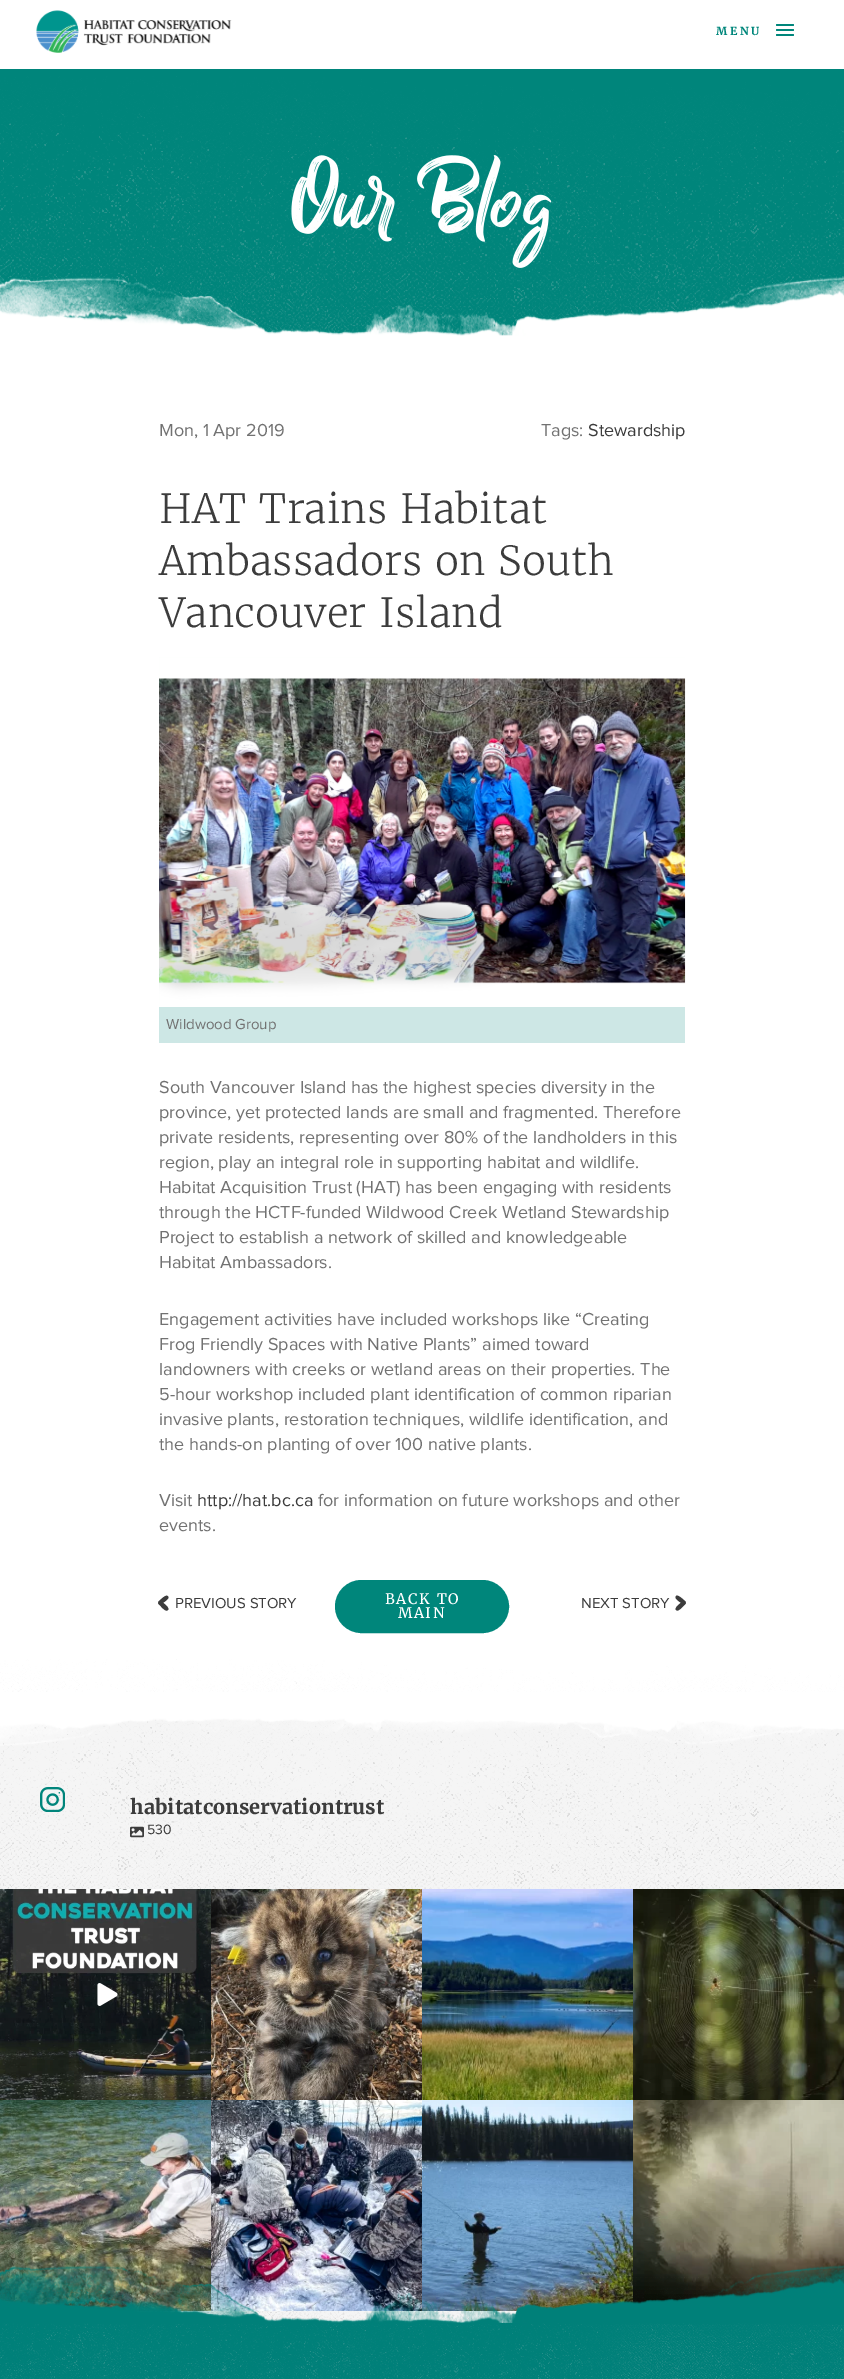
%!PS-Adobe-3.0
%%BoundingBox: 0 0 844 2379
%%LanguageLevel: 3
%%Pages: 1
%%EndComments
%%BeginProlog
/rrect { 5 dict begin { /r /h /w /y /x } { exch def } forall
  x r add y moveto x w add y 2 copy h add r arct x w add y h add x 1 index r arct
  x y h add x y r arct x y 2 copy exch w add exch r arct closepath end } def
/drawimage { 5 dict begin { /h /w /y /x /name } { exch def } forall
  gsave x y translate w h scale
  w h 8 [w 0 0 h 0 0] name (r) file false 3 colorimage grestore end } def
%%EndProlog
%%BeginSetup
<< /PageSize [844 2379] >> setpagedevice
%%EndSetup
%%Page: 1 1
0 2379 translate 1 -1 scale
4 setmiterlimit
1 setgray
0 0 844 2379 rectfill
(images/1.raw) 36 10 196 43 drawimage
0 0.525 0.482 setrgbcolor
776 29 18 2 1 rrect fill
776 24 18 2 1 rrect fill
776 34 18 2 1 rrect fill
0 0.522 0.482 setrgbcolor
0 69 844 267 rectfill
0.804 0.906 0.898 setrgbcolor
159 657 526 386 rectfill
(images/4.raw) 159 657 527 350 drawimage
0.235 setgray
newpath 161.5 1601.5 moveto 162.5 1602.5 172 1609 167 1610.5 curveto 165 1611 162 1607.5 161 1606.5 curveto 158.5 1604 lineto 157.5 1602 160 1600.5 161.5 1601.5 curveto closepath fill
newpath 159 1601 moveto 160 1600.5 167.5 1592 168.5 1597.5 curveto 168.5 1599 165 1601.5 163.5 1602.5 curveto 161 1604.5 lineto 158.5 1605 157.5 1602.5 159 1601 curveto closepath fill
0 0.525 0.482 setrgbcolor
336 1581 172 51 25.5 rrect gsave fill grestore
2 setlinewidth
stroke
0.235 setgray
newpath 682.5 1601.5 moveto 681.5 1602.5 672 1609 677 1610.5 curveto 679 1611 681.5 1607.5 683 1606.5 curveto 685.5 1604 lineto 686.5 1602 684 1600.5 682.5 1601.5 curveto closepath fill
newpath 685 1601 moveto 684 1600.5 676 1592 675.5 1597.5 curveto 675.5 1599 679 1601.5 680.5 1602.5 curveto 683 1604.5 lineto 685 1605 686.5 1602.5 685 1601 curveto closepath fill
0.961 setgray
0 1718 844 605 rectfill
(images/5.raw) 0 1659 844 664 drawimage
(images/6.raw) 0 1692 844 54 drawimage
(images/7.raw) 40 1787 25 25 drawimage
(images/8.raw) 130 1826 14 12 drawimage
(images/9.raw) 0 1889 211 211 drawimage
(images/10.raw) 97 1983 21 23 drawimage
(images/11.raw) 211 1889 211 211 drawimage
(images/12.raw) 422 1889 211 211 drawimage
(images/13.raw) 633 1889 211 211 drawimage
(images/14.raw) 0 2100 211 211 drawimage
(images/15.raw) 211 2100 211 211 drawimage
(images/16.raw) 422 2100 211 211 drawimage
(images/17.raw) 633 2100 211 205 drawimage
0 0.502 0.475 setrgbcolor
0 2323 844 56 rectfill
(images/19.raw) 0 2277 844 102 drawimage
(images/18.raw) 0 2259 844 65 drawimage
/Merriweather-Bold [11 0 0 -11 0 0] selectfont
0 0.525 0.482 setrgbcolor
716 35 moveto 2.5 0 (MENU) ashow
/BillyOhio-Regular [100 0 0 -100 0 0] selectfont
1 setgray
291 226 moveto (Our Blog) show
(images/2.raw) 0 76 844 260 drawimage
(images/3.raw) 0 270 844 91 drawimage
/ProximaNova-Regular [18 0 0 -18 0 0] selectfont
0.447 setgray
159 436 moveto (Mon, 1 Apr 2019) show
541 436 moveto (Tags:) show
0.235 setgray
588 436 moveto (Stewardship) show
/Merriweather-Light [40 0 0 -40 0 0] selectfont
159 523 moveto (HAT Trains Habitat) show
159 575 moveto (Ambassadors on South) show
159 627 moveto (Vancouver Island) show
/ProximaNova-Regular [15 0 0 -15 0 0] selectfont
0.447 setgray
166 1029 moveto (Wildwood Group) show
/ProximaNova-Regular [18 0 0 -18 0 0] selectfont
159 1093 moveto (South Vancouver Island has the highest species diversity in the) show
159 1118 moveto (province, yet protected lands are small and fragmented. Therefore) show
159 1143 moveto (private residents, representing over 80% of the landholders in this) show
159 1168 moveto (region, play an integral role in supporting habitat and wildlife.) show
159 1193 moveto (Habitat Acquisition Trust \(HAT\) has been engaging with residents) show
159 1218 moveto (through the HCTF-funded Wildwood Creek Wetland Stewardship) show
159 1243 moveto (Project to establish a network of skilled and knowledgeable) show
159 1268 moveto (Habitat Ambassadors.) show
159 1325 moveto (Engagement activities have included workshops like “Creating) show
159 1350 moveto (Frog Friendly Spaces with Native Plants” aimed toward) show
159 1375 moveto (landowners with creeks or wetland areas on their properties. The) show
159 1400 moveto (5-hour workshop included plant identification of common riparian) show
159 1425 moveto (invasive plants, restoration techniques, wildlife identification, and) show
159 1450 moveto (the hands-on planting of over 100 native plants.) show
159 1506 moveto (Visit) show
0.235 setgray
197 1506 moveto (http://hat.bc.ca) show
0.447 setgray
318 1506 moveto (for information on future workshops and other) show
159 1531 moveto (events.) show
/ProximaNova-Regular [15 0 0 -15 0 0] selectfont
0.235 setgray
175 1608 moveto (PREVIOUS STORY) show
/Merriweather-Regular [14.5 0 0 -14.5 0 0] selectfont
1 setgray
385 1604 moveto 1.5 0 (BACK TO) ashow
398 1618 moveto 1.5 0 (MAIN) ashow
/ProximaNova-Regular [15 0 0 -15 0 0] selectfont
0.235 setgray
581 1608 moveto (NEXT STORY) show
/Merriweather-Bold [20 0 0 -20 0 0] selectfont
130 1814 moveto (habitatconservationtrust) show
/ProximaNova-Regular [14 0 0 -14 0 0] selectfont
147 1834 moveto (530) show
showpage
%%EOF
